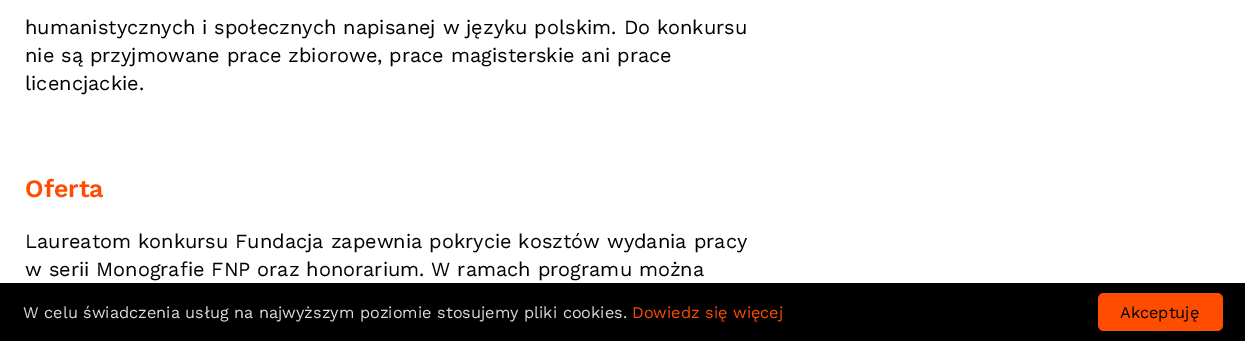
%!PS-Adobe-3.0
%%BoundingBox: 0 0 1245 341
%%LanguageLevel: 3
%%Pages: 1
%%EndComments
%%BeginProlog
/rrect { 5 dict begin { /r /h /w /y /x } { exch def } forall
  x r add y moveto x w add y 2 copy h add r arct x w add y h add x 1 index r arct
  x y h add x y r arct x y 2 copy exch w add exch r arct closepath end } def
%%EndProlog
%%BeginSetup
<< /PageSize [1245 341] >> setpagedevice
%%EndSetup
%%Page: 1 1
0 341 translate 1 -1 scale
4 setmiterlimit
1 setgray
0 0 1245 341 rectfill
0 setgray
0 283 1245 58 rectfill
0.996 0.302 0 setrgbcolor
1098 293 125 38 6 rrect fill
/WorkSans-Regular [20 0 0 -20 0 0] selectfont
0 setgray
25 34 moveto (humanistycznych i społecznych napisanej w języku polskim. Do konkursu) show
25 62 moveto (nie są przyjmowane prace zbiorowe, prace magisterskie ani prace) show
25 90 moveto (licencjackie.) show
/WorkSans-SemiBold [25 0 0 -25 0 0] selectfont
0.996 0.302 0 setrgbcolor
25 197 moveto (Oferta) show
/WorkSans-Regular [20 0 0 -20 0 0] selectfont
0 setgray
25 248 moveto (Laureatom konkursu Fundacja zapewnia pokrycie kosztów wydania pracy) show
25 276 moveto (w serii Monografie FNP oraz honorarium. W ramach programu można) show
/WorkSans-Regular [16.25 0 0 -16.25 0 0] selectfont
0.867 setgray
23 318 moveto (W celu świadczenia usług na najwyższym poziomie stosujemy pliki cookies.) show
0.996 0.302 0 setrgbcolor
632 318 moveto (Dowiedz się więcej) show
0 setgray
1120 318 moveto (Akceptuję) show
showpage
%%EOF
